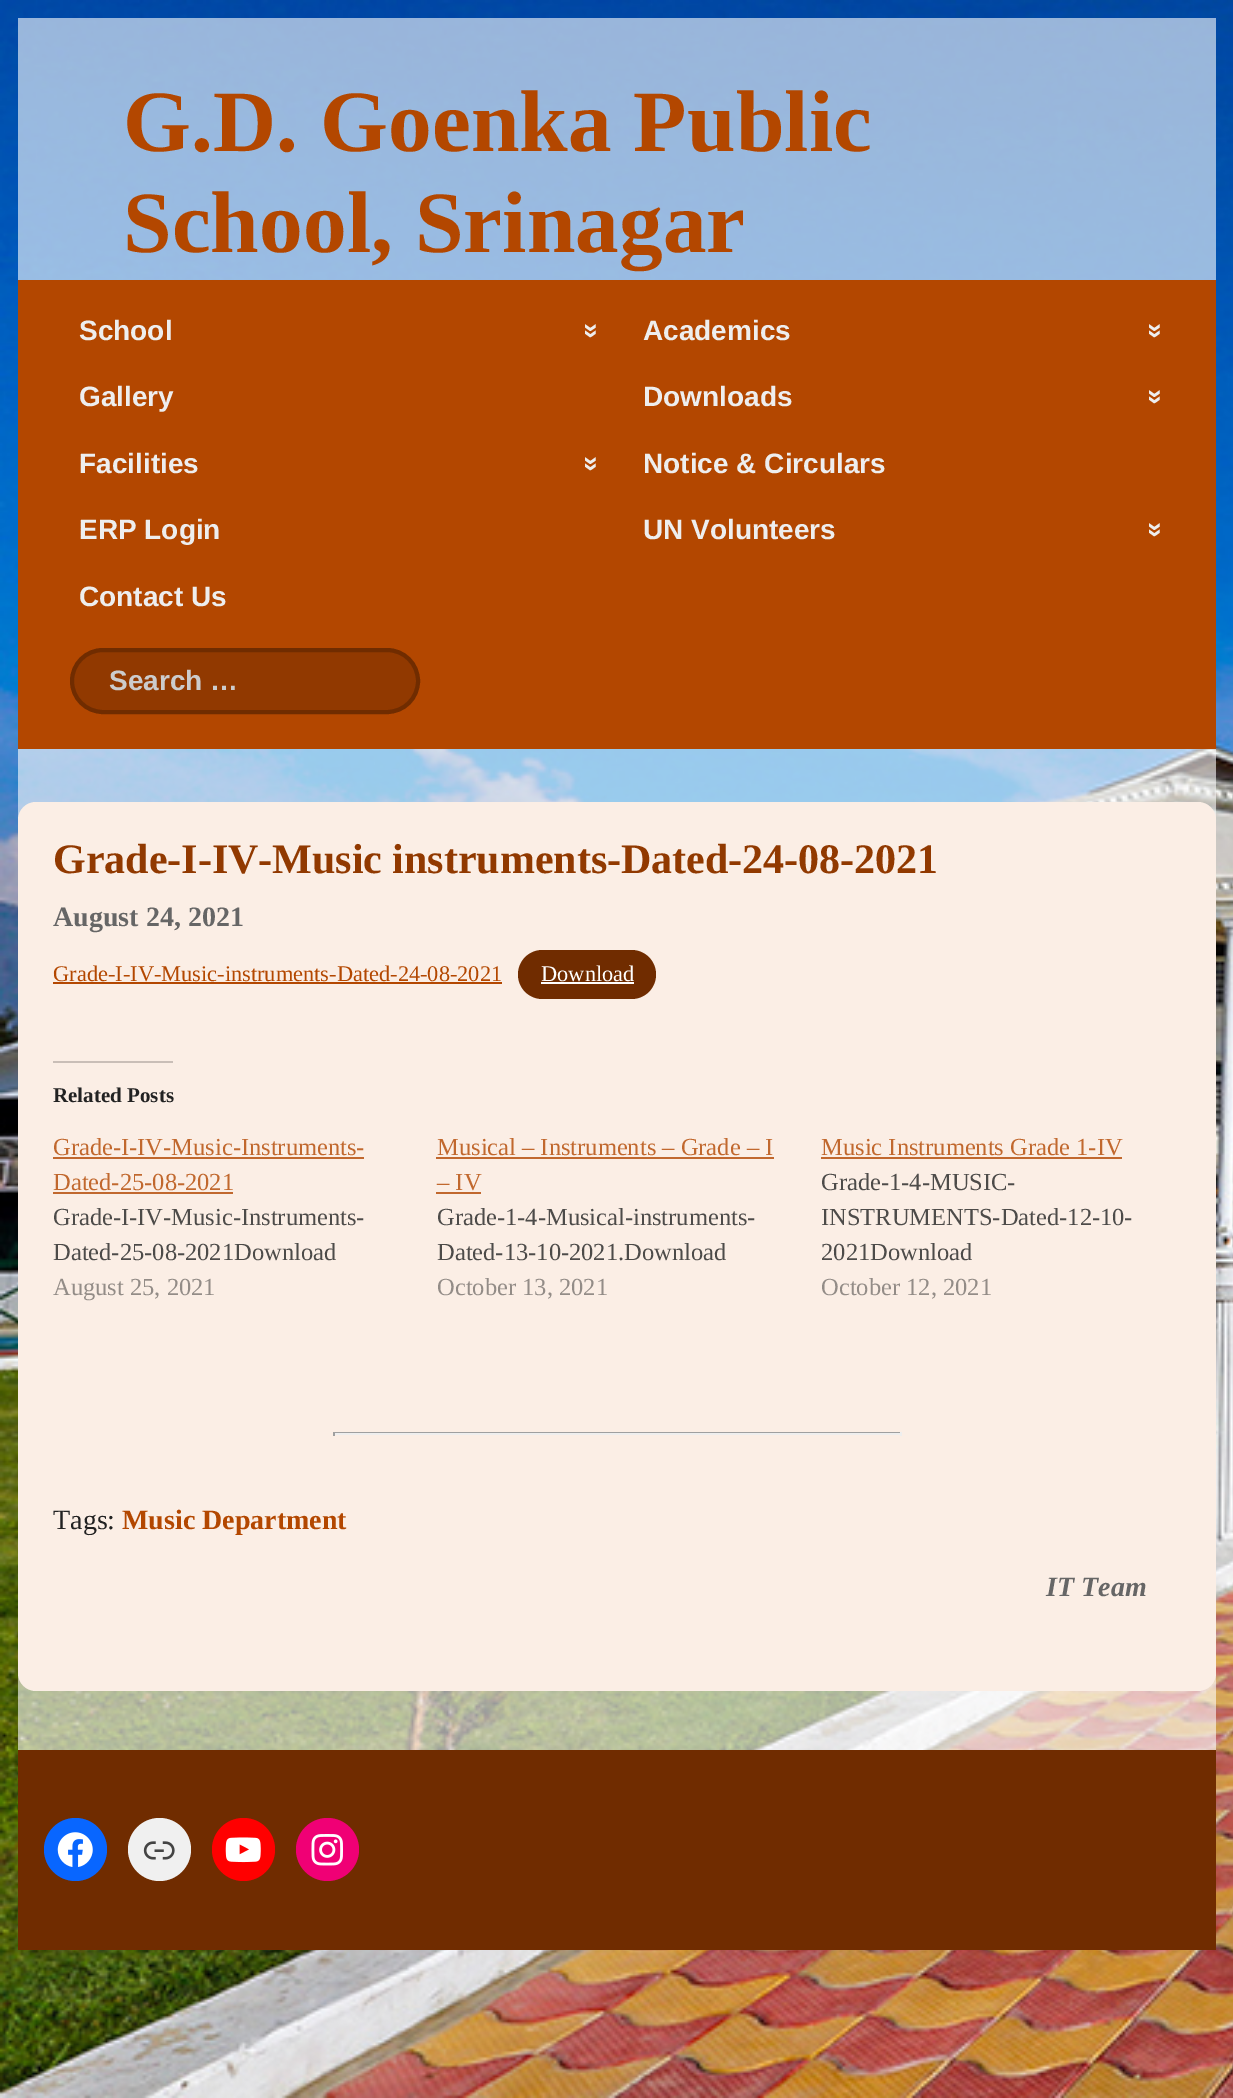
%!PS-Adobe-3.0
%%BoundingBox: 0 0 1233 2098
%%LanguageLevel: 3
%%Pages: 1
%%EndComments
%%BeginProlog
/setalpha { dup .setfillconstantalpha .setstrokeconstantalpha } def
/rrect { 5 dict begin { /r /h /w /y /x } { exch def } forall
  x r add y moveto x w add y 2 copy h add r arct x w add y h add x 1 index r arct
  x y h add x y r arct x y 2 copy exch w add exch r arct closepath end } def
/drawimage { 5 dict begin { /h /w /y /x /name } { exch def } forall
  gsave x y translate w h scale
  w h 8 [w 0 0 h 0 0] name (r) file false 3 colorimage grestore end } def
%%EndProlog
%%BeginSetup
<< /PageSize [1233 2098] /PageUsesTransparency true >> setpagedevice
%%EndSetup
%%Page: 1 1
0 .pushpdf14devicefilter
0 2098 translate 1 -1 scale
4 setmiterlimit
1 setgray
0 0 1233 2098 rectfill
(images/1.raw) 0 0 1233 2098 drawimage
0.6 setalpha
18 18 1198 1732 rectfill
1 setalpha
0.702 0.278 0 setrgbcolor
18 280 1198 469 rectfill
0.569 0.224 0 setrgbcolor
72 650 346 62 31 rrect gsave fill grestore
0.439 0.173 0 setrgbcolor
4 setlinewidth
stroke
0.984 0.933 0.898 setrgbcolor
18 802 1198 889 18 rrect fill
0.702 0.278 0 setrgbcolor
53 982 449 2 rectfill
0.439 0.173 0 setrgbcolor
518 950 138 49 24.5 rrect fill
1 setgray
541 982 93 2 rectfill
0.788 0.745 0.718 setrgbcolor
53 1061 120 2 rectfill
0.757 0.408 0.18 setrgbcolor
53 1157 311 2 rectfill
53 1192 180 2 rectfill
436 1157 338 2 rectfill
436 1192 45 2 rectfill
821 1157 301 2 rectfill
0.624 setgray
333 1432 568 1 rectfill
0.933 setgray
900 1432 2 4 rectfill
333 1433 568 2 rectfill
0.624 setgray
333 1432 2 4 rectfill
0.439 0.173 0 setrgbcolor
18 1750 1198 200 rectfill
0.031 0.4 1 setrgbcolor
newpath 75.5 1849.5 31.5 0 360 arc closepath fill
(images/2.raw) 57 1832 36 35 drawimage
0.941 setgray
newpath 159.5 1849.5 31.5 0 360 arc closepath fill
(images/3.raw) 143 1841 32 19 drawimage
1 0 0 setrgbcolor
newpath 243.5 1849.5 31.5 0 360 arc closepath fill
(images/4.raw) 225 1837 36 26 drawimage
0.941 0 0.459 setrgbcolor
newpath 327.5 1849.5 31.5 0 360 arc closepath fill
(images/5.raw) 311 1834 32 32 drawimage
/LiberationSerif-Bold [87.5 0 0 -87.5 0 0] selectfont
0.702 0.278 0 setrgbcolor
123 151 moveto (G.D. Goenka Public) show
123 252 moveto (School, Srinagar) show
/LiberationSans-Bold [28 0 0 -28 0 0] selectfont
0.933 setgray
79 340 moveto (School) show
gsave 583 323 translate 90 rotate 0 0 moveto (») show grestore
643 340 moveto (Academics) show
gsave 1147 323 translate 90 rotate 0 0 moveto (») show grestore
79 406 moveto (Gallery) show
643 406 moveto (Downloads) show
gsave 1147 389 translate 90 rotate 0 0 moveto (») show grestore
79 473 moveto (Facilities) show
gsave 583 456 translate 90 rotate 0 0 moveto (») show grestore
643 473 moveto (Notice & Circulars) show
79 539 moveto (ERP Login) show
643 539 moveto (UN Volunteers) show
gsave 1147 522 translate 90 rotate 0 0 moveto (») show grestore
79 606 moveto (Contact Us) show
0.8 setgray
109 690 moveto (Search …) show
/LiberationSerif-Bold [42 0 0 -42 0 0] selectfont
0.569 0.224 0 setrgbcolor
53 873 moveto (Grade-I-IV-Music instruments-Dated-24-08-2021) show
/LiberationSerif-Bold [28 0 0 -28 0 0] selectfont
0.4 setgray
53 926 moveto (August 24, 2021) show
/LiberationSerif-Regular [22.4 0 0 -22.4 0 0] selectfont
0.702 0.278 0 setrgbcolor
53 981 moveto (Grade-I-IV-Music-instruments-Dated-24-08-2021) show
1 setgray
541 981 moveto (Download) show
/LiberationSerif-Bold [21 0 0 -21 0 0] selectfont
0.133 setgray
53 1102 moveto (Related Posts) show
/LiberationSerif-Regular [24.5 0 0 -24.5 0 0] selectfont
0.757 0.408 0.18 setrgbcolor
53 1155 moveto (Grade-I-IV-Music-Instruments-) show
53 1190 moveto (Dated-25-08-2021) show
0.302 0.294 0.286 setrgbcolor
53 1225 moveto (Grade-I-IV-Music-Instruments-) show
53 1260 moveto (Dated-25-08-2021Download) show
0.576 0.549 0.529 setrgbcolor
53 1295 moveto (August 25, 2021) show
0.757 0.408 0.18 setrgbcolor
437 1155 moveto (Musical – Instruments – Grade – I) show
437 1190 moveto (– IV) show
0.302 0.294 0.286 setrgbcolor
437 1225 moveto (Grade-1-4-Musical-instruments-) show
437 1260 moveto (Dated-13-10-2021.Download) show
0.576 0.549 0.529 setrgbcolor
437 1295 moveto (October 13, 2021) show
0.757 0.408 0.18 setrgbcolor
821 1155 moveto (Music Instruments Grade 1-IV) show
0.302 0.294 0.286 setrgbcolor
821 1190 moveto (Grade-1-4-MUSIC-) show
821 1225 moveto (INSTRUMENTS-Dated-12-10-) show
821 1260 moveto (2021Download) show
0.576 0.549 0.529 setrgbcolor
821 1295 moveto (October 12, 2021) show
/LiberationSerif-Regular [28 0 0 -28 0 0] selectfont
0.133 setgray
53 1529 moveto (Tags:) show
/LiberationSerif-Bold [28 0 0 -28 0 0] selectfont
0.702 0.278 0 setrgbcolor
122 1529 moveto (Music Department) show
/LiberationSerif-BoldItalic [28 0 0 -28 0 0] selectfont
0.4 setgray
1046 1596 moveto (IT Team) show
.poppdf14devicefilter showpage
%%EOF
